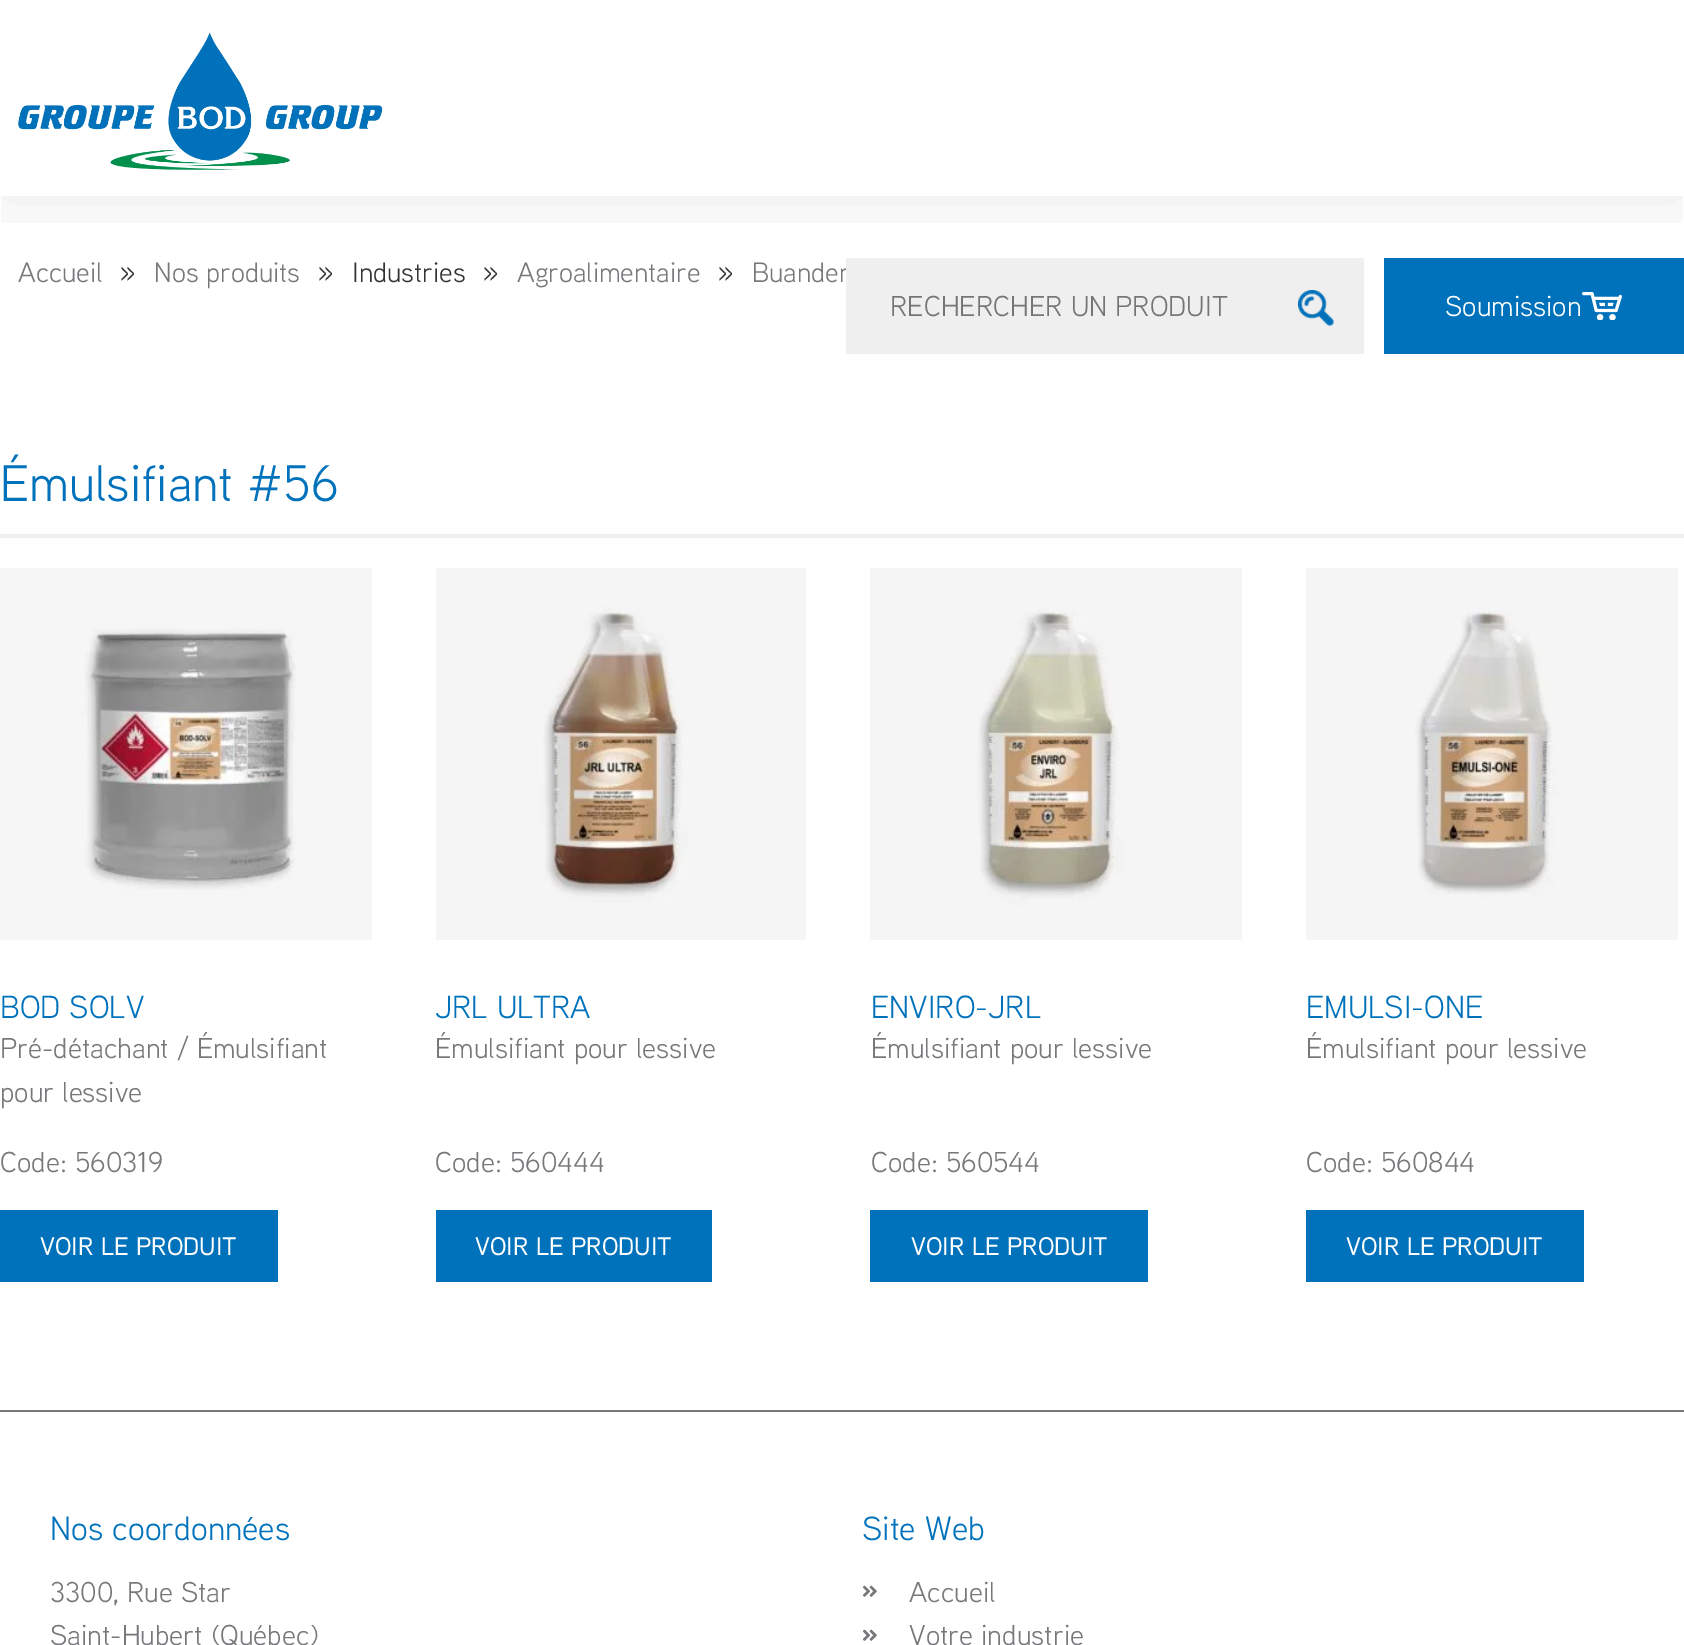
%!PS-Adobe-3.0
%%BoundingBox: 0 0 1684 1645
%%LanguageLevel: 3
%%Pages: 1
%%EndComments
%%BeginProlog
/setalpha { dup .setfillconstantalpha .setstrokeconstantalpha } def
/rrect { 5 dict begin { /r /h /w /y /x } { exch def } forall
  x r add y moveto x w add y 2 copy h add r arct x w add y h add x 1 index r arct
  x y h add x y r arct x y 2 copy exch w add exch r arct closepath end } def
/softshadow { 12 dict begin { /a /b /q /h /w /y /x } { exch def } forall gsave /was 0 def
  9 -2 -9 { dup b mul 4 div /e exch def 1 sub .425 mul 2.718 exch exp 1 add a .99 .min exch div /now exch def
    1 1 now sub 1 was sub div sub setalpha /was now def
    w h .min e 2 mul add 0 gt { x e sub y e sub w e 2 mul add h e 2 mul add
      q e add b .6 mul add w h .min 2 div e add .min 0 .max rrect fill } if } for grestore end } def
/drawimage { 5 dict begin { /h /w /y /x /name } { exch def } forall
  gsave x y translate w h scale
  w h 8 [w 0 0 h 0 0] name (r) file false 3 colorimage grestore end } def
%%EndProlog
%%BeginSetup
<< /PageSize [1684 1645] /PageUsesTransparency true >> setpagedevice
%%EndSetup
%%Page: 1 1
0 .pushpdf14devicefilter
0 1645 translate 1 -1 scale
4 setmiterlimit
1 setgray
0 0 1684 1645 rectfill
0 0.443 0.733 setrgbcolor
1384 258 300 96 rectfill
(images/3.raw) 1582 292 40 28 drawimage
0.937 setgray
0 534 1684 4 rectfill
(images/4.raw) 0 568 372 372 drawimage
0 0.443 0.733 setrgbcolor
0 1210 278 72 rectfill
(images/5.raw) 436 568 370 372 drawimage
436 1210 276 72 rectfill
(images/6.raw) 870 568 372 372 drawimage
870 1210 278 72 rectfill
(images/7.raw) 1306 568 372 372 drawimage
1306 1210 278 72 rectfill
0.467 0.471 0.482 setrgbcolor
0 1410 1684 2 rectfill
(images/8.raw) 862 1585 15 12 drawimage
(images/8.raw) 862 1629 15 12 drawimage
/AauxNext-Regular [28 0 0 -28 0 0] selectfont
18 282 moveto (Accueil) show
/AauxNext-Regular [32 0 0 -32 0 0] selectfont
0.2 setgray
120 282 moveto (») show
/AauxNext-Regular [28 0 0 -28 0 0] selectfont
0.467 0.471 0.482 setrgbcolor
154 282 moveto (Nos produits) show
/AauxNext-Regular [32 0 0 -32 0 0] selectfont
0.2 setgray
318 282 moveto (») show
/AauxNext-Regular [28 0 0 -28 0 0] selectfont
352 282 moveto (Industries) show
/AauxNext-Regular [32 0 0 -32 0 0] selectfont
483 282 moveto (») show
/AauxNext-Regular [28 0 0 -28 0 0] selectfont
0.467 0.471 0.482 setrgbcolor
517 282 moveto (Agroalimentaire) show
/AauxNext-Regular [32 0 0 -32 0 0] selectfont
0.2 setgray
718 282 moveto (») show
/AauxNext-Regular [28 0 0 -28 0 0] selectfont
0.467 0.471 0.482 setrgbcolor
752 282 moveto (Buander) show
0.937 setgray
846 258 518 96 rectfill
/AauxNext-Regular [28.75 0 0 -28.75 0 0] selectfont
0.459 setgray
890 316 moveto (RECHERCHER UN PRODUIT) show
(images/2.raw) 1298 290 36 36 drawimage
gsave
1 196 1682 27 rectclip
0 setgray
0 0 1684 196 0 40 0.08 softshadow
grestore
(images/1.raw) 18 32 365 138 drawimage
1 setgray
1445 316 moveto (Soumission) show
/AauxNext-Regular [51.25 0 0 -51.25 0 0] selectfont
0 0.443 0.733 setrgbcolor
0 501 moveto (Émulsifiant #56) show
/AauxNext-Regular [32 0 0 -32 0 0] selectfont
0 1018 moveto (BOD SOLV) show
/AauxNext-Regular [28.75 0 0 -28.75 0 0] selectfont
0.467 0.471 0.482 setrgbcolor
0 1058 moveto (Pré-détachant / Émulsifiant) show
0 1102 moveto (pour lessive) show
0 1172 moveto (Code: 560319) show
/AauxNext-Medium [25.5 0 0 -25.5 0 0] selectfont
1 setgray
40 1255 moveto (VOIR LE PRODUIT) show
/AauxNext-Regular [32 0 0 -32 0 0] selectfont
0 0.443 0.733 setrgbcolor
435 1018 moveto (JRL ULTRA) show
/AauxNext-Regular [28.75 0 0 -28.75 0 0] selectfont
0.467 0.471 0.482 setrgbcolor
435 1058 moveto (Émulsifiant pour lessive) show
435 1172 moveto (Code: 560444) show
/AauxNext-Medium [25.5 0 0 -25.5 0 0] selectfont
1 setgray
475 1255 moveto (VOIR LE PRODUIT) show
/AauxNext-Regular [32 0 0 -32 0 0] selectfont
0 0.443 0.733 setrgbcolor
871 1018 moveto (ENVIRO-JRL) show
/AauxNext-Regular [28.75 0 0 -28.75 0 0] selectfont
0.467 0.471 0.482 setrgbcolor
871 1058 moveto (Émulsifiant pour lessive) show
871 1172 moveto (Code: 560544) show
/AauxNext-Medium [25.5 0 0 -25.5 0 0] selectfont
1 setgray
911 1255 moveto (VOIR LE PRODUIT) show
/AauxNext-Regular [32 0 0 -32 0 0] selectfont
0 0.443 0.733 setrgbcolor
1306 1018 moveto (EMULSI-ONE) show
/AauxNext-Regular [28.75 0 0 -28.75 0 0] selectfont
0.467 0.471 0.482 setrgbcolor
1306 1058 moveto (Émulsifiant pour lessive) show
1306 1172 moveto (Code: 560844) show
/AauxNext-Medium [25.5 0 0 -25.5 0 0] selectfont
1 setgray
1346 1255 moveto (VOIR LE PRODUIT) show
/AauxNext-Regular [33.5 0 0 -33.5 0 0] selectfont
0 0.443 0.733 setrgbcolor
50 1540 moveto (Nos coordonnées) show
/AauxNext-Regular [28.75 0 0 -28.75 0 0] selectfont
0.467 0.471 0.482 setrgbcolor
50 1602 moveto (3300, Rue Star) show
50 1645 moveto (Saint-Hubert \(Québec\)) show
/AauxNext-Regular [33.5 0 0 -33.5 0 0] selectfont
0 0.443 0.733 setrgbcolor
862 1540 moveto (Site Web) show
/AauxNext-Regular [28.75 0 0 -28.75 0 0] selectfont
0.467 0.471 0.482 setrgbcolor
909 1602 moveto (Accueil) show
909 1645 moveto (Votre industrie) show
.poppdf14devicefilter showpage
%%EOF
